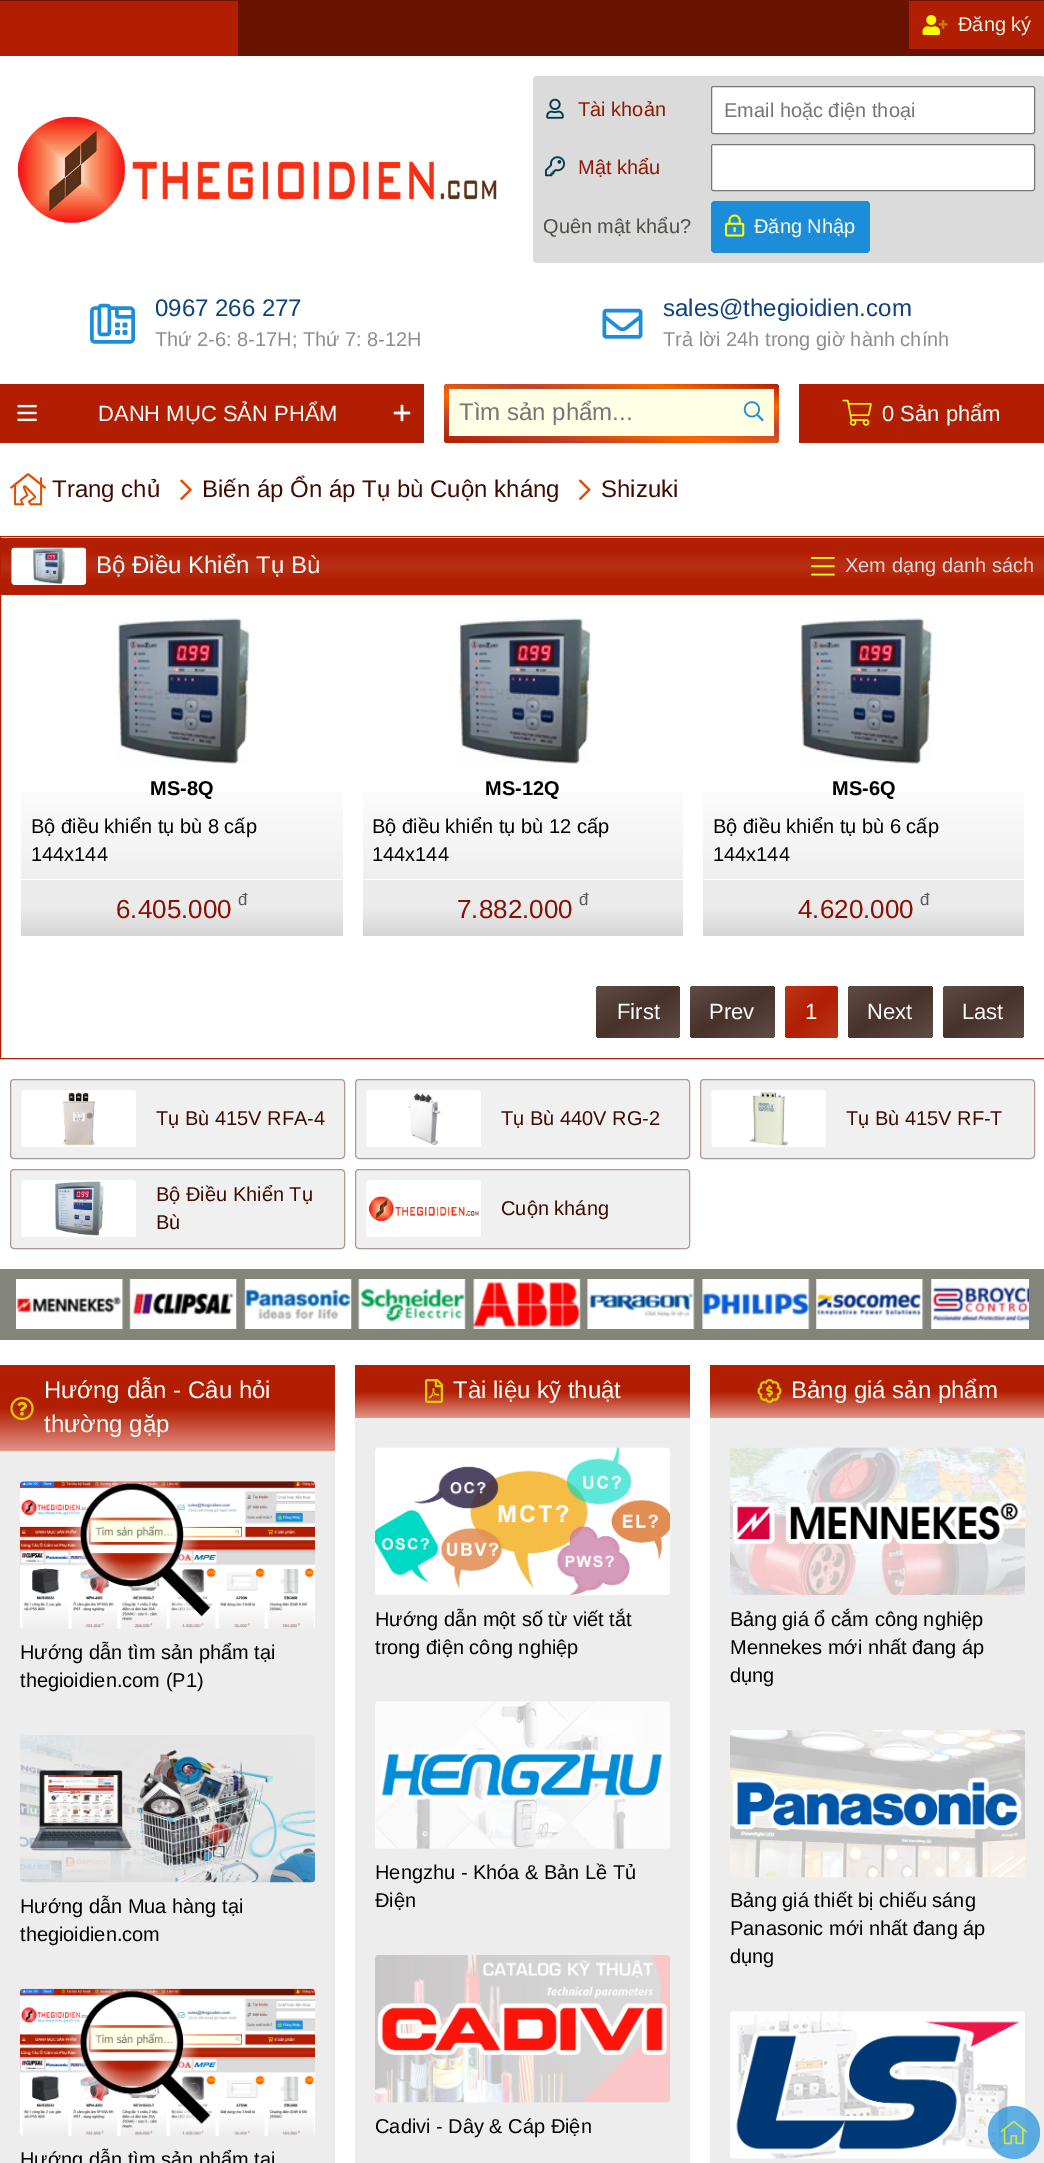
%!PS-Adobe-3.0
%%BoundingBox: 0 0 1044 2163
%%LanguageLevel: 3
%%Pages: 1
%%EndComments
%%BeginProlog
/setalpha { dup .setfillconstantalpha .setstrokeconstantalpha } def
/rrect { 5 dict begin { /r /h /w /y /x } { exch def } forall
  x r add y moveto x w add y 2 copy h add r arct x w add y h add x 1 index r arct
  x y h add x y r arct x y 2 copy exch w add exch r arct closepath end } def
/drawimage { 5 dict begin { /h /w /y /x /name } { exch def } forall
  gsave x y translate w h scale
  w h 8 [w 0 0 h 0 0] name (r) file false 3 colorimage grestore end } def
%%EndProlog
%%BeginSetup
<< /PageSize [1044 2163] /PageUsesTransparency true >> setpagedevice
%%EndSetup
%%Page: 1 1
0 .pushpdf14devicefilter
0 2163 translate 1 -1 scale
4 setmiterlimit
1 setgray
0 0 1044 2163 rectfill
0.416 0.075 0 setrgbcolor
0 0 1044 56 rectfill
0.698 0.118 0.008 setrgbcolor
0 1 238 55 rectfill
909 1 135 48 rectfill
(images/1.raw) 922 15 18 20 drawimage
(images/2.raw) 938 20 10 9 drawimage
(images/3.raw) 18 116 479 107 drawimage
0.859 setgray
533 76 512 187 4 rrect fill
(images/4.raw) 546 98 18 21 drawimage
1 setgray
711.5 86.5 323 47 2 rrect gsave fill grestore
0.463 setgray
stroke
(images/5.raw) 545 156 20 21 drawimage
1 setgray
711.5 144.5 323 46 2 rrect gsave fill grestore
0.463 setgray
stroke
0.11 0.553 0.851 setrgbcolor
711 201 159 52 4 rrect fill
(images/6.raw) 725 214 20 23 drawimage
(images/7.raw) 90 303 45 41 drawimage
(images/8.raw) 602 308 41 31 drawimage
0.698 0.118 0.008 setrgbcolor
0 384 424 59 rectfill
(images/9.raw) 17 404 20 18 drawimage
(images/10.raw) 393 404 18 18 drawimage
gsave 444 384 335 59 4 rrect clip newpath
<< /ShadingType 2 /ColorSpace /DeviceRGB /Coords [601 470 621 356] /Extend [true true] /Function << /FunctionType 3 /Domain [0 1] /Functions [<< /FunctionType 2 /Domain [0 1] /C0 [0.698 0.118 0.008] /C1 [0.749 0.243 0.149] /N 1 >> << /FunctionType 2 /Domain [0 1] /C0 [0.749 0.243 0.149] /C1 [1 0.4 0] /N 1 >> << /FunctionType 2 /Domain [0 1] /C0 [1 0.4 0] /C1 [0.749 0.267 0.176] /N 1 >> << /FunctionType 2 /Domain [0 1] /C0 [0.749 0.267 0.176] /C1 [1 0.4 0] /N 1 >> << /FunctionType 2 /Domain [0 1] /C0 [1 0.4 0] /C1 [0.698 0.118 0.008] /N 1 >>] /Bounds [0.2 0.4 0.6 0.8] /Encode [0 1 0 1 0 1 0 1 0 1] >> >> shfill grestore
1 1 0.902 setrgbcolor
449 389 325 47 rectfill
1 1 0.867 setrgbcolor
744 399 30 27 rectfill
(images/11.raw) 743 401 21 21 drawimage
0.698 0.118 0.008 setrgbcolor
799 384 245 59 rectfill
(images/12.raw) 842 399 30 27 drawimage
(images/13.raw) 10 473 37 33 drawimage
(images/14.raw) 180 479 12 22 drawimage
(images/15.raw) 578 479 13 22 drawimage
0.5 536.5 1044 522 rectstroke
gsave newpath 1 538 moveto 1044 538 lineto 1044 595 lineto 1 595 lineto closepath clip newpath
<< /ShadingType 2 /ColorSpace /DeviceRGB /Coords [523 537 523 595] /Extend [true true] /Function << /FunctionType 3 /Domain [0 1] /Functions [<< /FunctionType 2 /Domain [0 1] /C0 [0.698 0.118 0.008] /C1 [0.698 0.118 0.008] /N 1 >> << /FunctionType 2 /Domain [0 1] /C0 [0.698 0.118 0.008] /C1 [0.725 0.188 0.086] /N 1 >> << /FunctionType 2 /Domain [0 1] /C0 [0.725 0.188 0.086] /C1 [0.698 0.118 0.008] /N 1 >> << /FunctionType 2 /Domain [0 1] /C0 [0.698 0.118 0.008] /C1 [0.698 0.118 0.008] /N 1 >>] /Bounds [0.25 0.5 0.75] /Encode [0 1 0 1 0 1 0 1] >> >> shfill grestore
(images/16.raw) 11 547 76 38 drawimage
(images/17.raw) 811 557 24 19 drawimage
gsave newpath 21 792 moveto 343 792 lineto 343 879 lineto 21 879 lineto closepath clip newpath
<< /ShadingType 2 /ColorSpace /DeviceRGB /Coords [182 615 182 936] /Extend [true true] /Function << /FunctionType 3 /Domain [0 1] /Functions [<< /FunctionType 2 /Domain [0 1] /C0 [1 1 1] /C1 [1 1 1] /N 1 >> << /FunctionType 2 /Domain [0 1] /C0 [1 1 1] /C1 [0.902 0.902 0.902] /N 1 >>] /Bounds [0.5] /Encode [0 1 0 1] >> >> shfill grestore
(images/18.raw) 116 618 134 146 drawimage
gsave newpath 21 880 moveto 343 880 lineto 343 936 lineto 21 936 lineto closepath clip newpath
<< /ShadingType 2 /ColorSpace /DeviceRGB /Coords [182 936 182 880] /Extend [true true] /Function << /FunctionType 3 /Domain [0 1] /Functions [<< /FunctionType 2 /Domain [0 1] /C0 [0.835 0.835 0.835] /C1 [0.922 0.922 0.922] /N 1 >> << /FunctionType 2 /Domain [0 1] /C0 [0.922 0.922 0.922] /C1 [0.922 0.922 0.922] /N 1 >>] /Bounds [0.5] /Encode [0 1 0 1] >> >> shfill grestore
gsave newpath 363 792 moveto 683 792 lineto 683 879 lineto 363 879 lineto closepath clip newpath
<< /ShadingType 2 /ColorSpace /DeviceRGB /Coords [523 615 523 936] /Extend [true true] /Function << /FunctionType 3 /Domain [0 1] /Functions [<< /FunctionType 2 /Domain [0 1] /C0 [1 1 1] /C1 [1 1 1] /N 1 >> << /FunctionType 2 /Domain [0 1] /C0 [1 1 1] /C1 [0.902 0.902 0.902] /N 1 >>] /Bounds [0.5] /Encode [0 1 0 1] >> >> shfill grestore
(images/19.raw) 457 618 134 146 drawimage
gsave newpath 363 880 moveto 683 880 lineto 683 936 lineto 363 936 lineto closepath clip newpath
<< /ShadingType 2 /ColorSpace /DeviceRGB /Coords [523 936 523 880] /Extend [true true] /Function << /FunctionType 3 /Domain [0 1] /Functions [<< /FunctionType 2 /Domain [0 1] /C0 [0.835 0.835 0.835] /C1 [0.922 0.922 0.922] /N 1 >> << /FunctionType 2 /Domain [0 1] /C0 [0.922 0.922 0.922] /C1 [0.922 0.922 0.922] /N 1 >>] /Bounds [0.5] /Encode [0 1 0 1] >> >> shfill grestore
gsave newpath 703 792 moveto 1024 792 lineto 1024 879 lineto 703 879 lineto closepath clip newpath
<< /ShadingType 2 /ColorSpace /DeviceRGB /Coords [863 615 863 936] /Extend [true true] /Function << /FunctionType 3 /Domain [0 1] /Functions [<< /FunctionType 2 /Domain [0 1] /C0 [1 1 1] /C1 [1 1 1] /N 1 >> << /FunctionType 2 /Domain [0 1] /C0 [1 1 1] /C1 [0.902 0.902 0.902] /N 1 >>] /Bounds [0.5] /Encode [0 1 0 1] >> >> shfill grestore
(images/20.raw) 799 618 133 146 drawimage
gsave newpath 703 880 moveto 1024 880 lineto 1024 936 lineto 703 936 lineto closepath clip newpath
<< /ShadingType 2 /ColorSpace /DeviceRGB /Coords [863 936 863 880] /Extend [true true] /Function << /FunctionType 3 /Domain [0 1] /Functions [<< /FunctionType 2 /Domain [0 1] /C0 [0.835 0.835 0.835] /C1 [0.922 0.922 0.922] /N 1 >> << /FunctionType 2 /Domain [0 1] /C0 [0.922 0.922 0.922] /C1 [0.922 0.922 0.922] /N 1 >>] /Bounds [0.5] /Encode [0 1 0 1] >> >> shfill grestore
gsave 596 986 84 52 4 rrect clip newpath
<< /ShadingType 2 /ColorSpace /DeviceRGB /Coords [615 975 661 1049] /Extend [true true] /Function << /FunctionType 3 /Domain [0 1] /Functions [<< /FunctionType 2 /Domain [0 1] /C0 [0.373 0.298 0.271] /C1 [0.282 0.196 0.165] /N 1 >> << /FunctionType 2 /Domain [0 1] /C0 [0.282 0.196 0.165] /C1 [0.373 0.298 0.271] /N 1 >>] /Bounds [0.5] /Encode [0 1 0 1] >> >> shfill grestore
gsave 690 986 85 52 4 rrect clip newpath
<< /ShadingType 2 /ColorSpace /DeviceRGB /Coords [710 974 755 1049] /Extend [true true] /Function << /FunctionType 3 /Domain [0 1] /Functions [<< /FunctionType 2 /Domain [0 1] /C0 [0.373 0.298 0.271] /C1 [0.282 0.196 0.165] /N 1 >> << /FunctionType 2 /Domain [0 1] /C0 [0.282 0.196 0.165] /C1 [0.373 0.298 0.271] /N 1 >>] /Bounds [0.5] /Encode [0 1 0 1] >> >> shfill grestore
gsave 785 986 53 52 4 rrect clip newpath
<< /ShadingType 2 /ColorSpace /DeviceRGB /Coords [786 986 837 1038] /Extend [true true] /Function << /FunctionType 3 /Domain [0 1] /Functions [<< /FunctionType 2 /Domain [0 1] /C0 [0.729 0.212 0.11] /C1 [0.698 0.118 0.008] /N 1 >> << /FunctionType 2 /Domain [0 1] /C0 [0.698 0.118 0.008] /C1 [0.729 0.212 0.11] /N 1 >>] /Bounds [0.5] /Encode [0 1 0 1] >> >> shfill grestore
gsave 848 986 85 52 4 rrect clip newpath
<< /ShadingType 2 /ColorSpace /DeviceRGB /Coords [867 974 913 1049] /Extend [true true] /Function << /FunctionType 3 /Domain [0 1] /Functions [<< /FunctionType 2 /Domain [0 1] /C0 [0.373 0.298 0.271] /C1 [0.282 0.196 0.165] /N 1 >> << /FunctionType 2 /Domain [0 1] /C0 [0.282 0.196 0.165] /C1 [0.373 0.298 0.271] /N 1 >>] /Bounds [0.5] /Encode [0 1 0 1] >> >> shfill grestore
gsave 943 986 81 52 4 rrect clip newpath
<< /ShadingType 2 /ColorSpace /DeviceRGB /Coords [960 975 1006 1049] /Extend [true true] /Function << /FunctionType 3 /Domain [0 1] /Functions [<< /FunctionType 2 /Domain [0 1] /C0 [0.373 0.298 0.271] /C1 [0.282 0.196 0.165] /N 1 >> << /FunctionType 2 /Domain [0 1] /C0 [0.282 0.196 0.165] /C1 [0.373 0.298 0.271] /N 1 >>] /Bounds [0.5] /Encode [0 1 0 1] >> >> shfill grestore
0.941 setgray
10.5 1079.5 334 79 3.5 rrect gsave fill grestore
0.69 0.592 0.573 setrgbcolor
stroke
(images/21.raw) 21 1090 115 57 drawimage
0.941 setgray
355.5 1079.5 334 79 3.5 rrect gsave fill grestore
0.69 0.592 0.573 setrgbcolor
stroke
(images/22.raw) 366 1090 115 57 drawimage
0.941 setgray
700.5 1079.5 334 79 3.5 rrect gsave fill grestore
0.69 0.592 0.573 setrgbcolor
stroke
(images/23.raw) 711 1090 115 57 drawimage
0.941 setgray
10.5 1169.5 334 79 3.5 rrect gsave fill grestore
0.69 0.592 0.573 setrgbcolor
stroke
(images/24.raw) 21 1180 115 57 drawimage
0.941 setgray
355.5 1169.5 334 79 3.5 rrect gsave fill grestore
0.69 0.592 0.573 setrgbcolor
stroke
(images/25.raw) 366 1180 115 57 drawimage
0.514 0.522 0.478 setrgbcolor
0 1269 1044 71 rectfill
(images/26.raw) 16 1279 108 50 drawimage
(images/27.raw) 129 1279 108 50 drawimage
(images/28.raw) 244 1279 108 50 drawimage
(images/29.raw) 358 1279 108 50 drawimage
(images/30.raw) 473 1279 108 50 drawimage
(images/31.raw) 587 1279 108 50 drawimage
(images/32.raw) 702 1279 108 50 drawimage
(images/33.raw) 816 1279 108 50 drawimage
(images/34.raw) 931 1279 98 50 drawimage
0.929 setgray
0 1451 335 712 rectfill
gsave newpath 0 1365 moveto 335 1365 lineto 335 1451 lineto 0 1451 lineto closepath clip newpath
<< /ShadingType 2 /ColorSpace /DeviceRGB /Coords [168 1365 168 1451] /Extend [true true] /Function << /FunctionType 3 /Domain [0 1] /Functions [<< /FunctionType 2 /Domain [0 1] /C0 [0.698 0.118 0.008] /C1 [0.698 0.118 0.008] /N 1 >> << /FunctionType 2 /Domain [0 1] /C0 [0.698 0.118 0.008] /C1 [0.761 0.271 0.18] /N 1 >> << /FunctionType 2 /Domain [0 1] /C0 [0.761 0.271 0.18] /C1 [0.824 0.424 0.353] /N 1 >> << /FunctionType 2 /Domain [0 1] /C0 [0.824 0.424 0.353] /C1 [0.882 0.58 0.529] /N 1 >>] /Bounds [0.5 0.67 0.83] /Encode [0 1 0 1 0 1 0 1] >> >> shfill grestore
(images/35.raw) 10 1396 24 25 drawimage
(images/36.raw) 20 1481 295 148 drawimage
(images/37.raw) 20 1735 295 148 drawimage
(images/38.raw) 20 1988 295 148 drawimage
355 1418 335 745 rectfill
gsave newpath 355 1365 moveto 690 1365 lineto 690 1418 lineto 355 1418 lineto closepath clip newpath
<< /ShadingType 2 /ColorSpace /DeviceRGB /Coords [523 1365 523 1418] /Extend [true true] /Function << /FunctionType 3 /Domain [0 1] /Functions [<< /FunctionType 2 /Domain [0 1] /C0 [0.698 0.118 0.008] /C1 [0.698 0.118 0.008] /N 1 >> << /FunctionType 2 /Domain [0 1] /C0 [0.698 0.118 0.008] /C1 [0.761 0.271 0.18] /N 1 >> << /FunctionType 2 /Domain [0 1] /C0 [0.761 0.271 0.18] /C1 [0.824 0.424 0.353] /N 1 >> << /FunctionType 2 /Domain [0 1] /C0 [0.824 0.424 0.353] /C1 [0.882 0.58 0.529] /N 1 >>] /Bounds [0.5 0.67 0.83] /Encode [0 1 0 1 0 1 0 1] >> >> shfill grestore
(images/39.raw) 425 1379 18 24 drawimage
(images/40.raw) 375 1447 295 148 drawimage
(images/41.raw) 375 1701 295 148 drawimage
(images/42.raw) 375 1955 295 148 drawimage
710 1418 334 745 rectfill
gsave newpath 710 1365 moveto 1044 1365 lineto 1044 1418 lineto 710 1418 lineto closepath clip newpath
<< /ShadingType 2 /ColorSpace /DeviceRGB /Coords [878 1365 878 1418] /Extend [true true] /Function << /FunctionType 3 /Domain [0 1] /Functions [<< /FunctionType 2 /Domain [0 1] /C0 [0.698 0.118 0.008] /C1 [0.698 0.118 0.008] /N 1 >> << /FunctionType 2 /Domain [0 1] /C0 [0.698 0.118 0.008] /C1 [0.761 0.271 0.18] /N 1 >> << /FunctionType 2 /Domain [0 1] /C0 [0.761 0.271 0.18] /C1 [0.824 0.424 0.353] /N 1 >> << /FunctionType 2 /Domain [0 1] /C0 [0.824 0.424 0.353] /C1 [0.882 0.58 0.529] /N 1 >>] /Bounds [0.5 0.67 0.83] /Encode [0 1 0 1 0 1 0 1] >> >> shfill grestore
(images/43.raw) 757 1379 25 24 drawimage
(images/44.raw) 730 1447 295 148 drawimage
(images/45.raw) 730 1730 295 148 drawimage
(images/46.raw) 730 2011 295 148 drawimage
0.7 setalpha
0.11 0.553 0.851 setrgbcolor
988 2106 52 53 26 rrect fill
1 setalpha
(images/47.raw) 1000 2120 27 25 drawimage
/LiberationSans-Regular [20 0 0 -20 0 0] selectfont
0.945 0.953 0.894 setrgbcolor
958 31 moveto (Đăng ký) show
0.553 0.094 0.008 setrgbcolor
578 116 moveto (Tài khoản) show
0.459 setgray
724 117 moveto (Email hoặc điện thoại) show
0.553 0.094 0.008 setrgbcolor
578 174 moveto (Mật khẩu) show
0.302 0.306 0.278 setrgbcolor
543 233 moveto (Quên mật khẩu?) show
1 setgray
754 233 moveto (Đăng Nhập) show
/LiberationSans-Regular [24 0 0 -24 0 0] selectfont
0.051 0.259 0.478 setrgbcolor
155 316 moveto (0967 266 277) show
/LiberationSans-Regular [20 0 0 -20 0 0] selectfont
0.553 setgray
155 346 moveto (Thứ 2-6: 8-17H; Thứ 7: 8-12H) show
/LiberationSans-Regular [24 0 0 -24 0 0] selectfont
0.051 0.259 0.478 setrgbcolor
663 316 moveto (sales@thegioidien.com) show
/LiberationSans-Regular [20 0 0 -20 0 0] selectfont
0.553 setgray
663 346 moveto (Trả lời 24h trong giờ hành chính) show
/LiberationSans-Regular [22 0 0 -22 0 0] selectfont
1 setgray
98 421 moveto (DANH MỤC SẢN PHẨM) show
/LiberationSans-Regular [24 0 0 -24 0 0] selectfont
0.459 setgray
459 420 moveto (Tìm sản phẩm...) show
/LiberationSans-Regular [22 0 0 -22 0 0] selectfont
1 setgray
882 421 moveto (0 Sản phẩm) show
/LiberationSans-Regular [24 0 0 -24 0 0] selectfont
0.243 0.043 0 setrgbcolor
52 497 moveto (Trang chủ) show
202 497 moveto (Biến áp Ổn áp Tụ bù Cuộn kháng) show
601 497 moveto (Shizuki) show
1 setgray
96 573 moveto (Bộ Điều Khiển Tụ Bù) show
/LiberationSans-Regular [20 0 0 -20 0 0] selectfont
0.859 setgray
845 572 moveto (Xem dạng danh sách) show
/LiberationSans-Bold [20 0 0 -20 0 0] selectfont
0 setgray
150 795 moveto (MS-8Q) show
/LiberationSans-Regular [20 0 0 -20 0 0] selectfont
31 833 moveto (Bộ điều khiển tụ bù 8 cấp) show
31 861 moveto (144x144) show
/LiberationSans-Regular [26 0 0 -26 0 0] selectfont
0.537 0.059 0 setrgbcolor
116 918 moveto (6.405.000) show
/LiberationSans-Regular [17 0 0 -17 0 0] selectfont
0.345 setgray
238 905 moveto (đ) show
/LiberationSans-Bold [20 0 0 -20 0 0] selectfont
0 setgray
485 795 moveto (MS-12Q) show
/LiberationSans-Regular [20 0 0 -20 0 0] selectfont
372 833 moveto (Bộ điều khiển tụ bù 12 cấp) show
372 861 moveto (144x144) show
/LiberationSans-Regular [26 0 0 -26 0 0] selectfont
0.537 0.059 0 setrgbcolor
457 918 moveto (7.882.000) show
/LiberationSans-Regular [17 0 0 -17 0 0] selectfont
0.345 setgray
579 905 moveto (đ) show
/LiberationSans-Bold [20 0 0 -20 0 0] selectfont
0 setgray
832 795 moveto (MS-6Q) show
/LiberationSans-Regular [20 0 0 -20 0 0] selectfont
713 833 moveto (Bộ điều khiển tụ bù 6 cấp) show
713 861 moveto (144x144) show
/LiberationSans-Regular [26 0 0 -26 0 0] selectfont
0.537 0.059 0 setrgbcolor
798 918 moveto (4.620.000) show
/LiberationSans-Regular [17 0 0 -17 0 0] selectfont
0.345 setgray
920 905 moveto (đ) show
/LiberationSans-Regular [22 0 0 -22 0 0] selectfont
1 setgray
617 1019 moveto (First) show
709 1019 moveto (Prev) show
1 1 0.937 setrgbcolor
805 1019 moveto (1) show
1 setgray
867 1019 moveto (Next) show
962 1019 moveto (Last) show
/LiberationSans-Regular [20 0 0 -20 0 0] selectfont
0.243 0.043 0 setrgbcolor
156 1125 moveto (Tụ Bù 415V RFA-4) show
501 1125 moveto (Tụ Bù 440V RG-2) show
846 1125 moveto (Tụ Bù 415V RF-T) show
156 1201 moveto (Bộ Điều Khiển Tụ) show
156 1229 moveto (Bù) show
501 1215 moveto (Cuộn kháng) show
/LiberationSans-Regular [24 0 0 -24 0 0] selectfont
1 setgray
44 1398 moveto (Hướng dẫn - Câu hỏi) show
44 1432 moveto (thường gặp) show
/LiberationSans-Regular [20 0 0 -20 0 0] selectfont
0 setgray
20 1659 moveto (Hướng dẫn tìm sản phẩm tại) show
20 1687 moveto (thegioidien.com \(P1\)) show
20 1913 moveto (Hướng dẫn Mua hàng tại) show
20 1941 moveto (thegioidien.com) show
20 2166 moveto (Hướng dẫn tìm sản phẩm tại) show
/LiberationSans-Regular [24 0 0 -24 0 0] selectfont
1 setgray
453 1398 moveto (Tài liệu kỹ thuật) show
/LiberationSans-Regular [20 0 0 -20 0 0] selectfont
0 setgray
375 1626 moveto (Hướng dẫn một số từ viết tắt) show
375 1654 moveto (trong điện công nghiệp) show
375 1879 moveto (Hengzhu - Khóa & Bản Lề Tủ) show
375 1907 moveto (Điện) show
375 2133 moveto (Cadivi - Dây & Cáp Điện) show
/LiberationSans-Regular [24 0 0 -24 0 0] selectfont
1 setgray
791 1398 moveto (Bảng giá sản phẩm) show
/LiberationSans-Regular [20 0 0 -20 0 0] selectfont
0 setgray
730 1626 moveto (Bảng giá ổ cắm công nghiệp) show
730 1654 moveto (Mennekes mới nhất đang áp) show
730 1682 moveto (dụng) show
730 1907 moveto (Bảng giá thiết bị chiếu sáng) show
730 1935 moveto (Panasonic mới nhất đang áp) show
730 1963 moveto (dụng) show
.poppdf14devicefilter showpage
%%EOF
